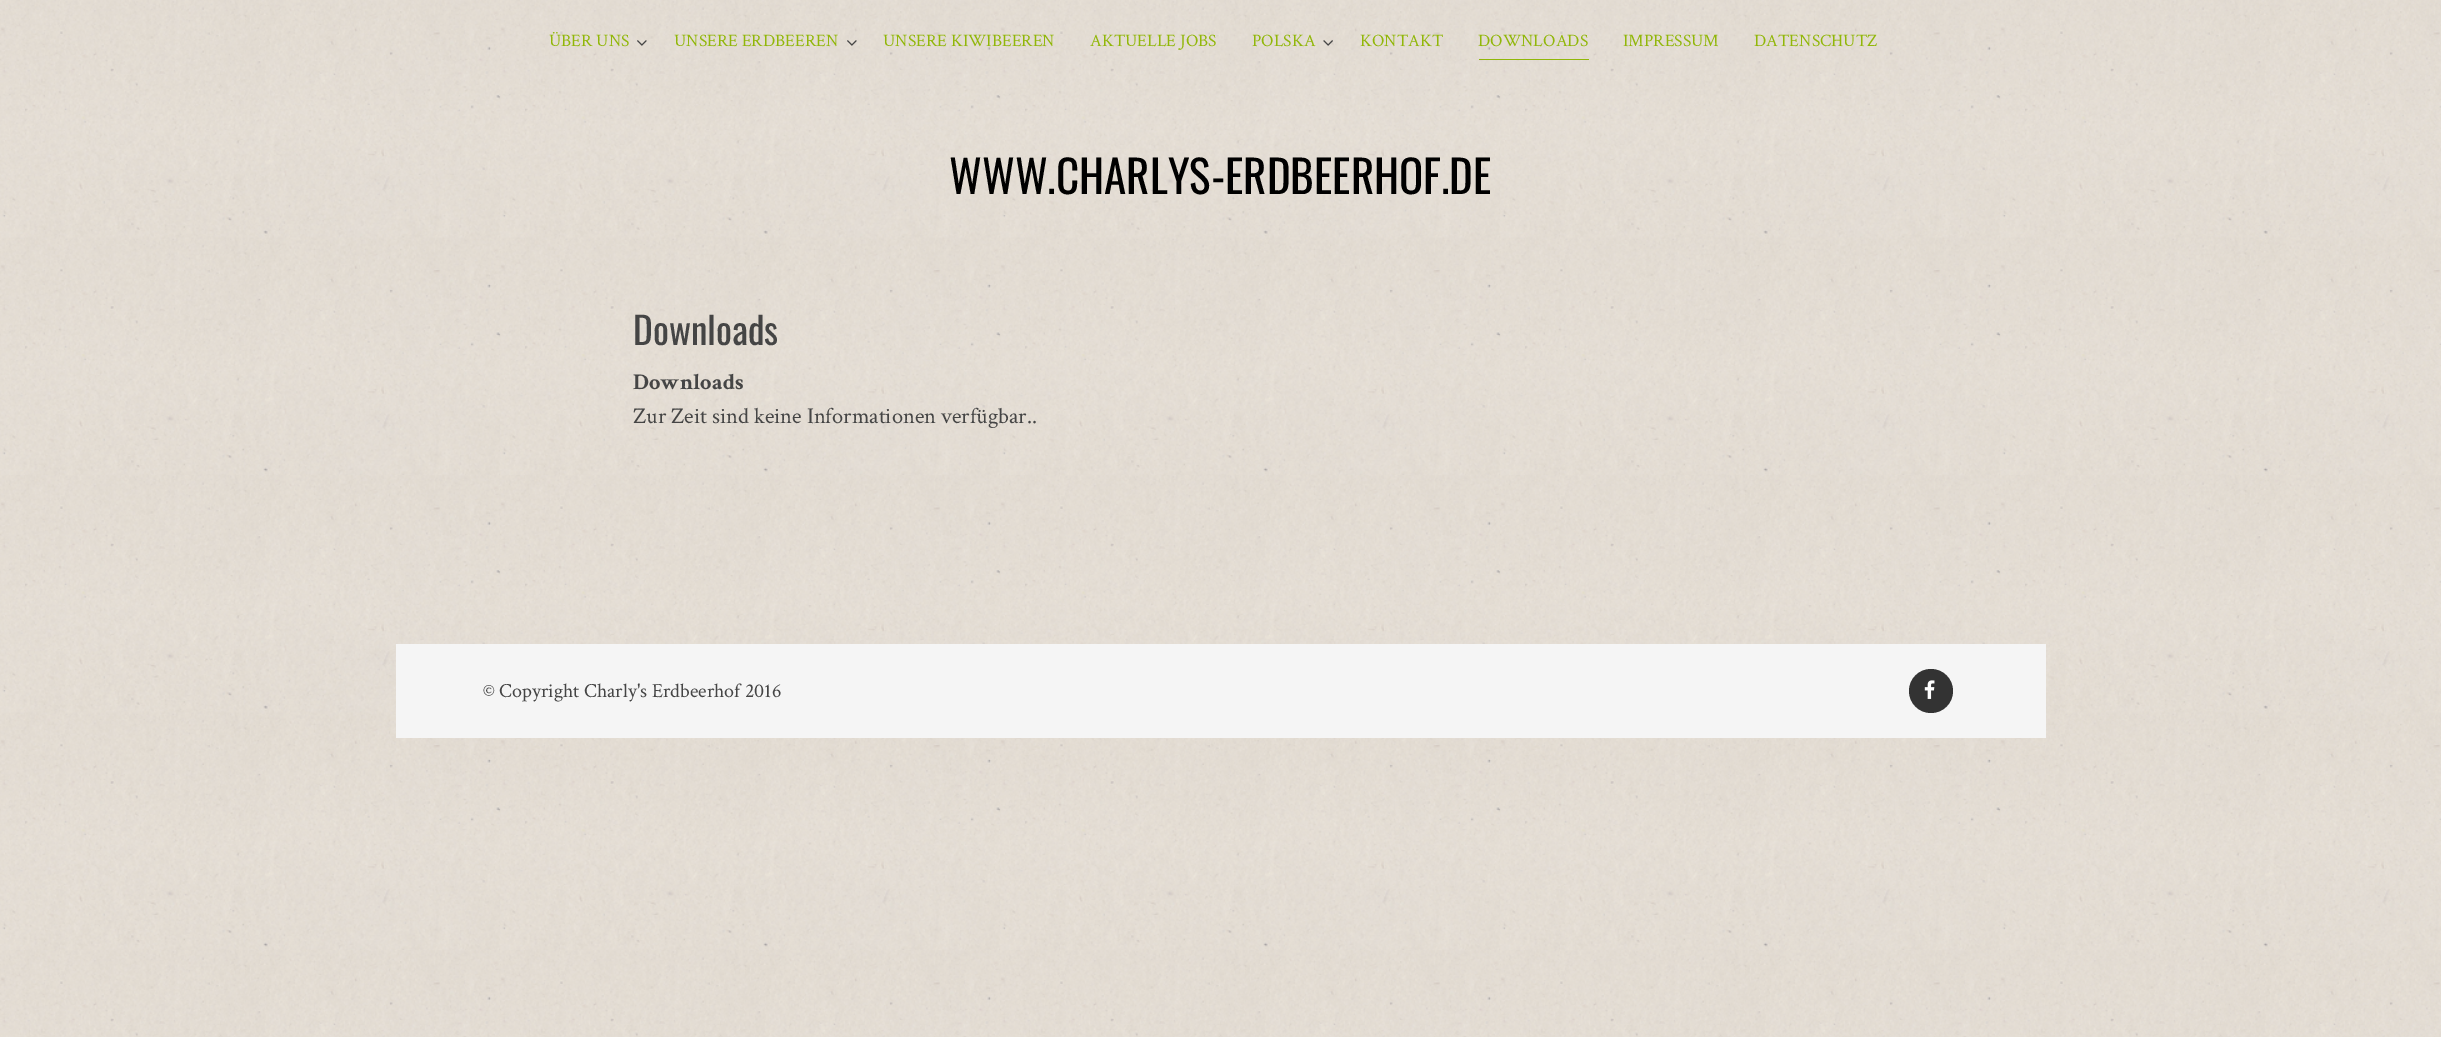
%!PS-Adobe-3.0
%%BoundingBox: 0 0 2441 1037
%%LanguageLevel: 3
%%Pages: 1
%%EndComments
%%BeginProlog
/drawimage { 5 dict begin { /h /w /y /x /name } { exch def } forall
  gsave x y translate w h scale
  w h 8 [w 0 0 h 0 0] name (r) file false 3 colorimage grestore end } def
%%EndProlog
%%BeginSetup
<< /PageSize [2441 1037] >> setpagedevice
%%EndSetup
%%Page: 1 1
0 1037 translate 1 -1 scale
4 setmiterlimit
1 setgray
0 0 2441 1037 rectfill
(images/1.raw) 0 0 2441 1037 drawimage
(images/2.raw) 637 40 10 6 drawimage
(images/3.raw) 847 40 10 6 drawimage
(images/4.raw) 1323 40 10 6 drawimage
0.569 0.718 0.035 setrgbcolor
1479 59 110 1 rectfill
0.961 setgray
396 644 1650 94 rectfill
0.2 setgray
newpath 1931 691 22 0 360 arc closepath fill
(images/5.raw) 1924 680 11 19 drawimage
/CrimsonText-Regular [17.5 0 0 -17.5 0 0] selectfont
0.569 0.718 0.035 setrgbcolor
549 46 moveto (ÜBER UNS) show
674 46 moveto (UNSERE ERDBEEREN) show
883 46 moveto (UNSERE KIWIBEEREN) show
1090 46 moveto (AKTUELLE JOBS) show
1252 46 moveto (POLSKA) show
1360 46 moveto (KONTAKT) show
1478 46 moveto (DOWNLOADS) show
1623 46 moveto (IMPRESSUM) show
1754 46 moveto (DATENSCHUTZ) show
/Oswald-Regular [45 0 0 -45 0 0] selectfont
0 setgray
949 194 moveto (WWW.CHARLYS-ERDBEERHOF.DE) show
/Oswald-Regular [37.5 0 0 -37.5 0 0] selectfont
0.271 setgray
633 345 moveto (Downloads) show
/CrimsonText-Bold [22.5 0 0 -22.5 0 0] selectfont
633 389 moveto (Downloads) show
/CrimsonText-Regular [22.5 0 0 -22.5 0 0] selectfont
633 423 moveto (Zur Zeit sind keine Informationen verfügbar..) show
/CrimsonText-Regular [20 0 0 -20 0 0] selectfont
483 697 moveto (© Copyright Charly's Erdbeerhof 2016) show
showpage
%%EOF
